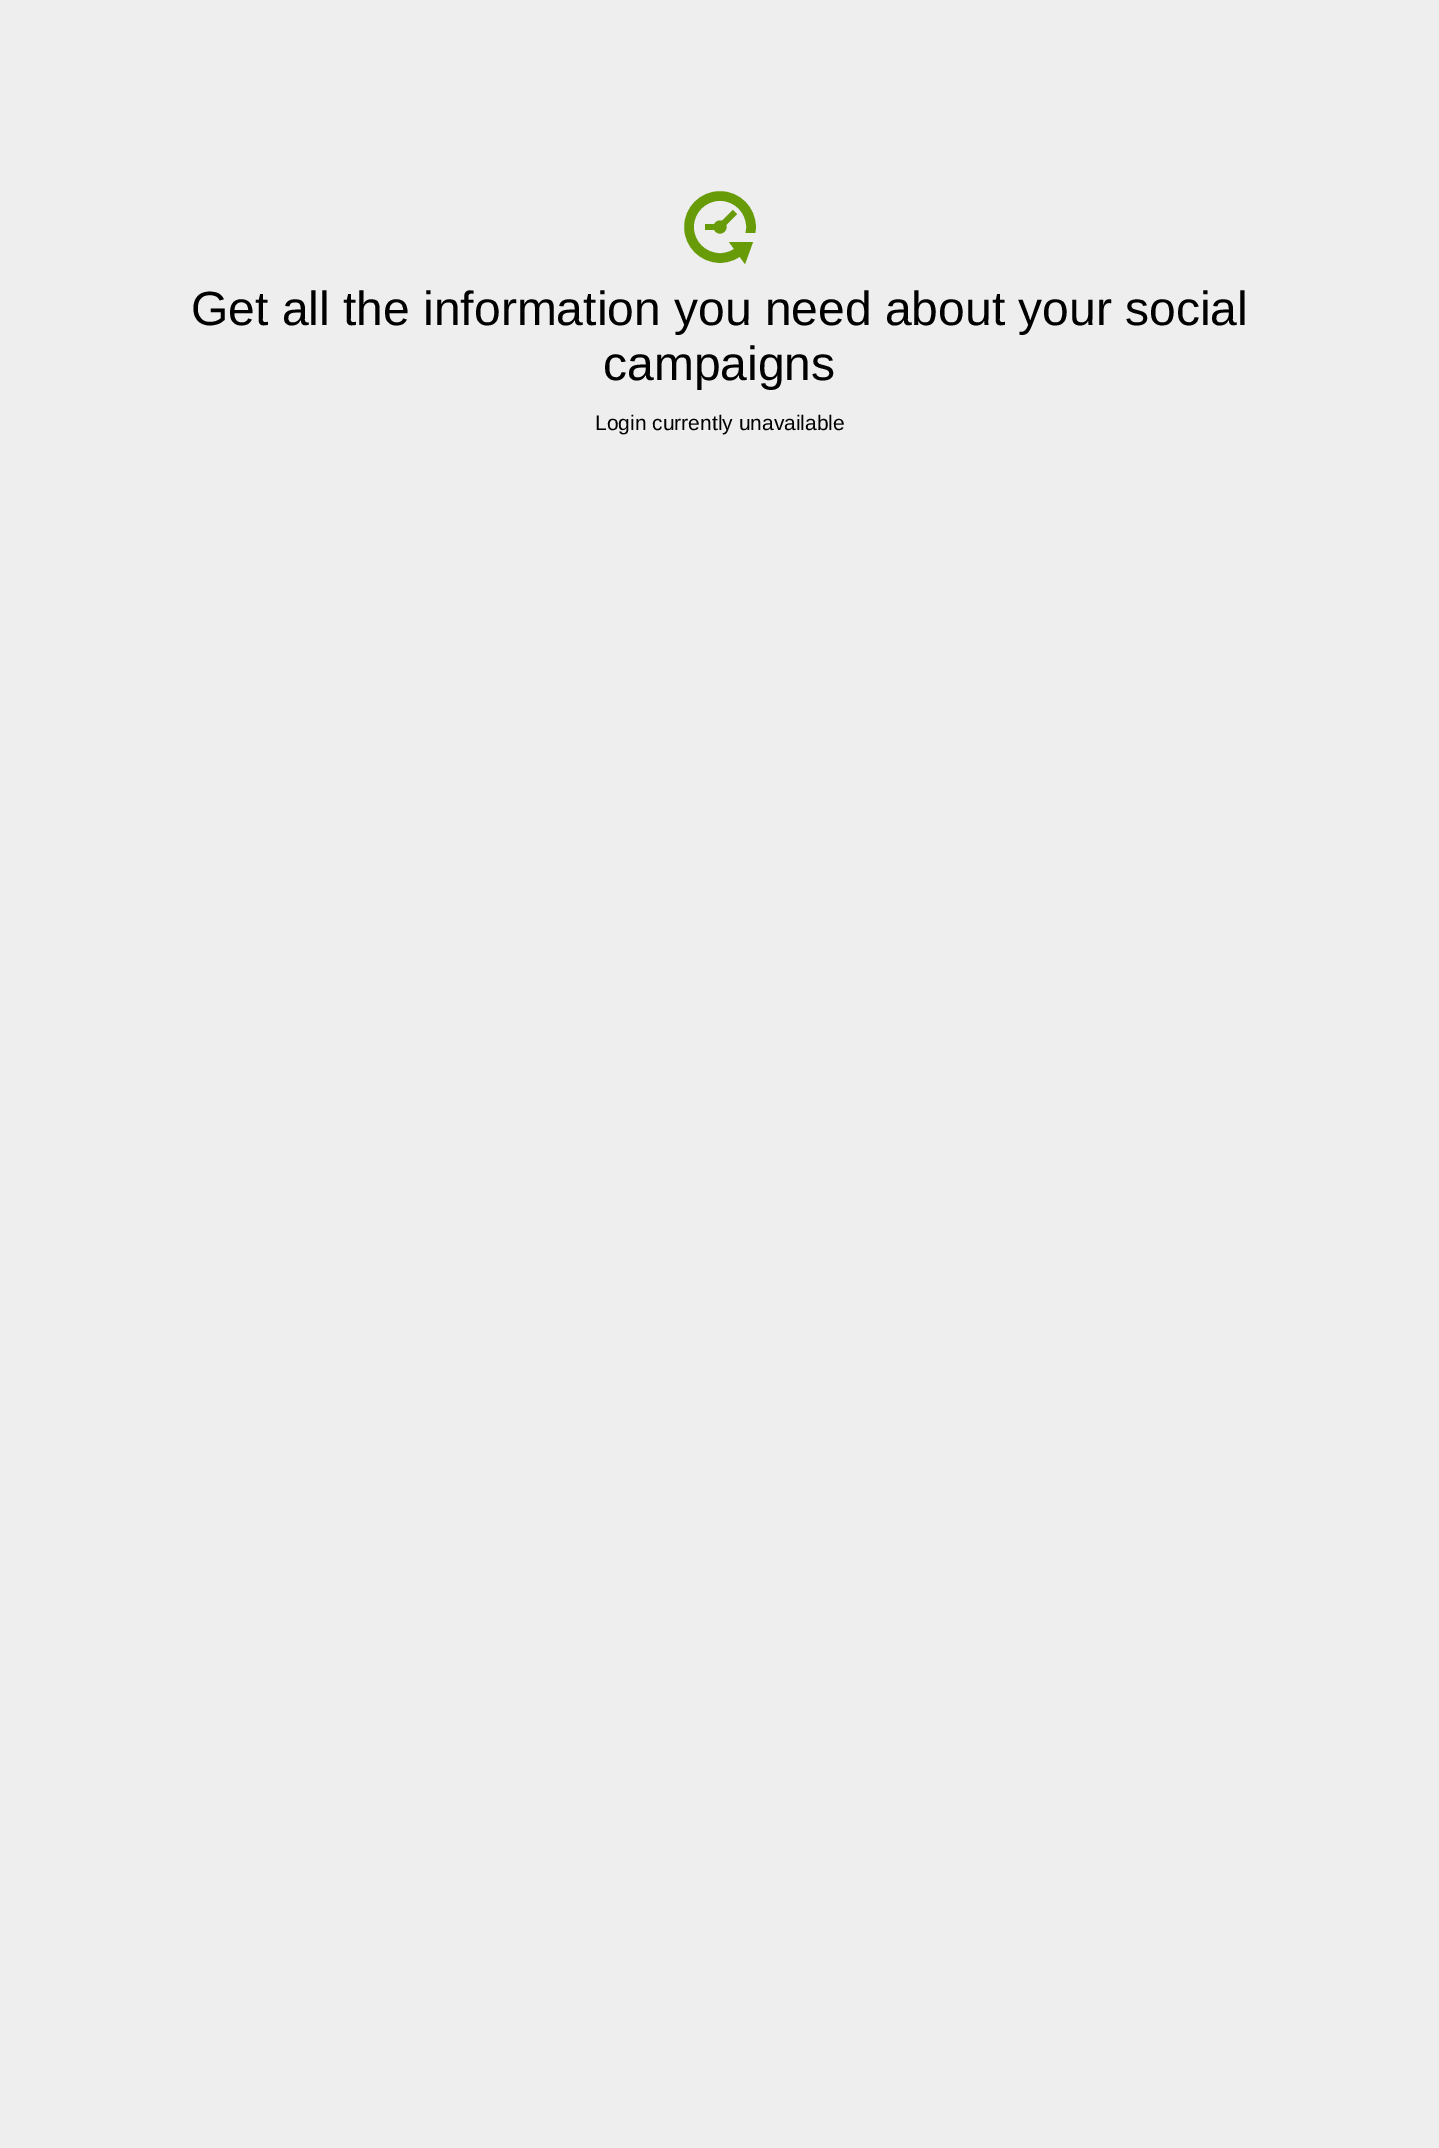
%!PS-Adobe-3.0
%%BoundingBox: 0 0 1439 2148
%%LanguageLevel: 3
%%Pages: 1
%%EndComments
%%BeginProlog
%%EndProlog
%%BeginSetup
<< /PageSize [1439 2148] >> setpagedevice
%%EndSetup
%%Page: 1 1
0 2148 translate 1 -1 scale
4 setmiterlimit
0.933 setgray
0 0 1439 2148 rectfill
0.404 0.608 0.031 setrgbcolor
9.5 setlinewidth
newpath 720 227 31 0 360 arc closepath stroke
newpath 720 227 6 0 360 arc closepath gsave fill grestore
1 setlinewidth
stroke
705 224 15 6 rectfill
6 setlinewidth
newpath 735 212 moveto 720 227 lineto stroke
0.933 setgray
741 233 15 9 rectfill
0.404 0.608 0.031 setrgbcolor
newpath 729 242 moveto 753 242 lineto 745 264 lineto closepath fill
/LiberationSans-Regular [48 0 0 -48 0 0] selectfont
0 setgray
191 325 moveto (Get all the information you need about your social) show
603 380 moveto (campaigns) show
/LiberationSans-Regular [21 0 0 -21 0 0] selectfont
595 430 moveto (Login currently unavailable) show
showpage
%%EOF
